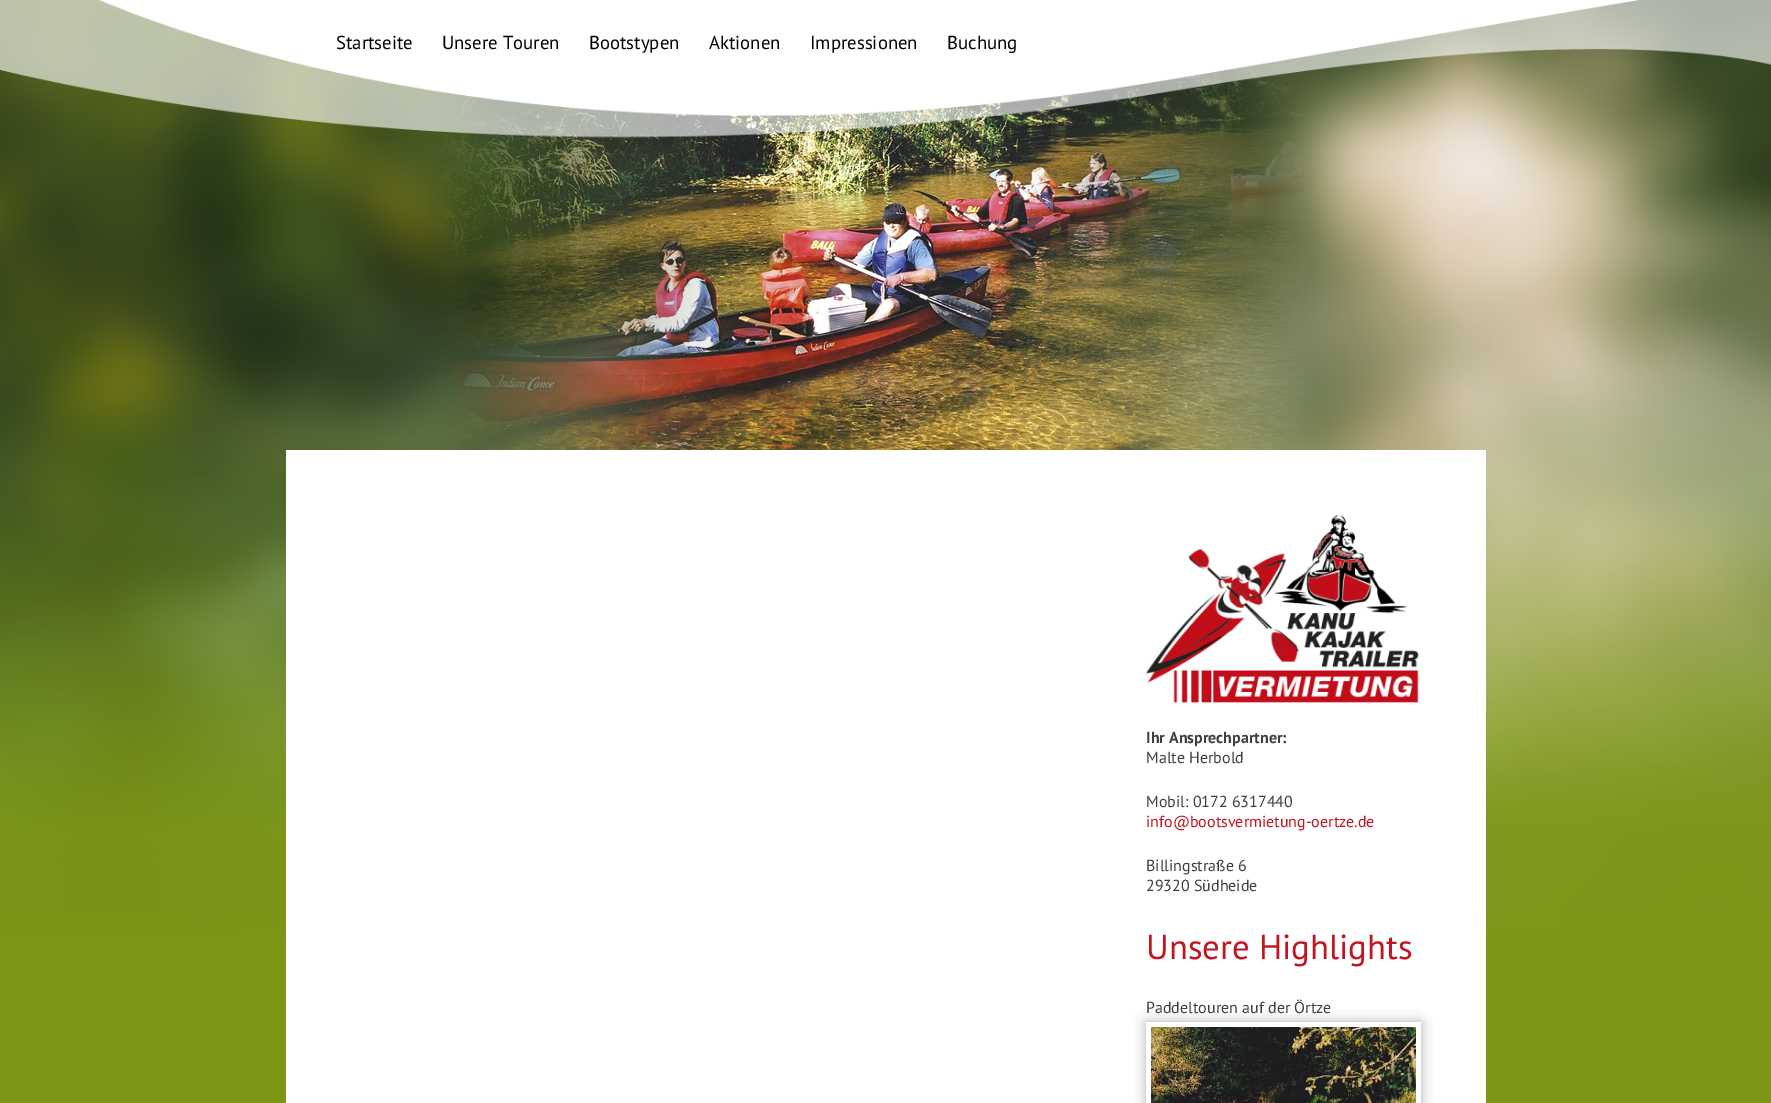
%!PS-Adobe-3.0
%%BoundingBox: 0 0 1771 1103
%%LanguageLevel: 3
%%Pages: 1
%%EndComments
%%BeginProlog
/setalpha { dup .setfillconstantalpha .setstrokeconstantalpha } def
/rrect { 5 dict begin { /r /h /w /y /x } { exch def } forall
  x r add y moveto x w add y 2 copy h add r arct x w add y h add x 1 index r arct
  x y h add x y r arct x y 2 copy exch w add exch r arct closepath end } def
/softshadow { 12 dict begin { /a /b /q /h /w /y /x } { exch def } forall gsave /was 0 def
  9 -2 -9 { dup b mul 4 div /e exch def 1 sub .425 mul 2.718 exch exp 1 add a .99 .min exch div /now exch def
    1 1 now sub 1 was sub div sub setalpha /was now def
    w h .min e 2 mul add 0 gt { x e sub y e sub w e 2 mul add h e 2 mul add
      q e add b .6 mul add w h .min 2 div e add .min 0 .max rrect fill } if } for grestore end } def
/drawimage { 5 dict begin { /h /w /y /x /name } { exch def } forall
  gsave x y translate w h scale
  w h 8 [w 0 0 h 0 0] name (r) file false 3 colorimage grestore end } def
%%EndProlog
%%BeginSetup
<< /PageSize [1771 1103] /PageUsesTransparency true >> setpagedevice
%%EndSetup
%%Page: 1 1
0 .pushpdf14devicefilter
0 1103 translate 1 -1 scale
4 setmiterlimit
0.486 0.588 0.086 setrgbcolor
0 0 1771 1103 rectfill
(images/1.raw) 0 0 1771 934 drawimage
(images/3.raw) 439 56 866 394 drawimage
(images/2.raw) 0 0 1771 138 drawimage
1 setgray
286 450 1200 653 rectfill
(images/4.raw) 1146 515 273 188 drawimage
gsave
newpath 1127 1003 moveto 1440 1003 lineto 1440 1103 lineto 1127 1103 lineto closepath 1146 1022 moveto 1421 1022 lineto 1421 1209 lineto 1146 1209 lineto closepath eoclip newpath
0.678 setgray
1146 1022 275 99 0 6 1 softshadow
grestore
(images/5.raw) 1151 1027 265 76 drawimage
/PTSans-Regular [18.75 0 0 -18.75 0 0] selectfont
0 setgray
336 49 moveto (Startseite) show
442 49 moveto (Unsere Touren) show
589 49 moveto (Bootstypen) show
709 49 moveto (Aktionen) show
810 49 moveto (Impressionen) show
947 49 moveto (Buchung) show
/PTSans-Bold [16 0 0 -16 0 0] selectfont
0.251 setgray
1146 743 moveto (Ihr Ansprechpartner:) show
/PTSans-Regular [16 0 0 -16 0 0] selectfont
1146 763 moveto (Malte Herbold) show
1146 807 moveto (Mobil: 0172 6317440) show
0.765 0.078 0.122 setrgbcolor
1146 827 moveto (info@bootsvermietung-oertze.de) show
0.251 setgray
1146 871 moveto (Billingstraße 6) show
1146 891 moveto (29320 Südheide) show
/PTSans-Regular [34.75 0 0 -34.75 0 0] selectfont
0.765 0.078 0.122 setrgbcolor
1146 959 moveto (Unsere Highlights) show
/PTSans-Regular [16 0 0 -16 0 0] selectfont
0.251 setgray
1146 1013 moveto (Paddeltouren auf der Örtze) show
.poppdf14devicefilter showpage
%%EOF
